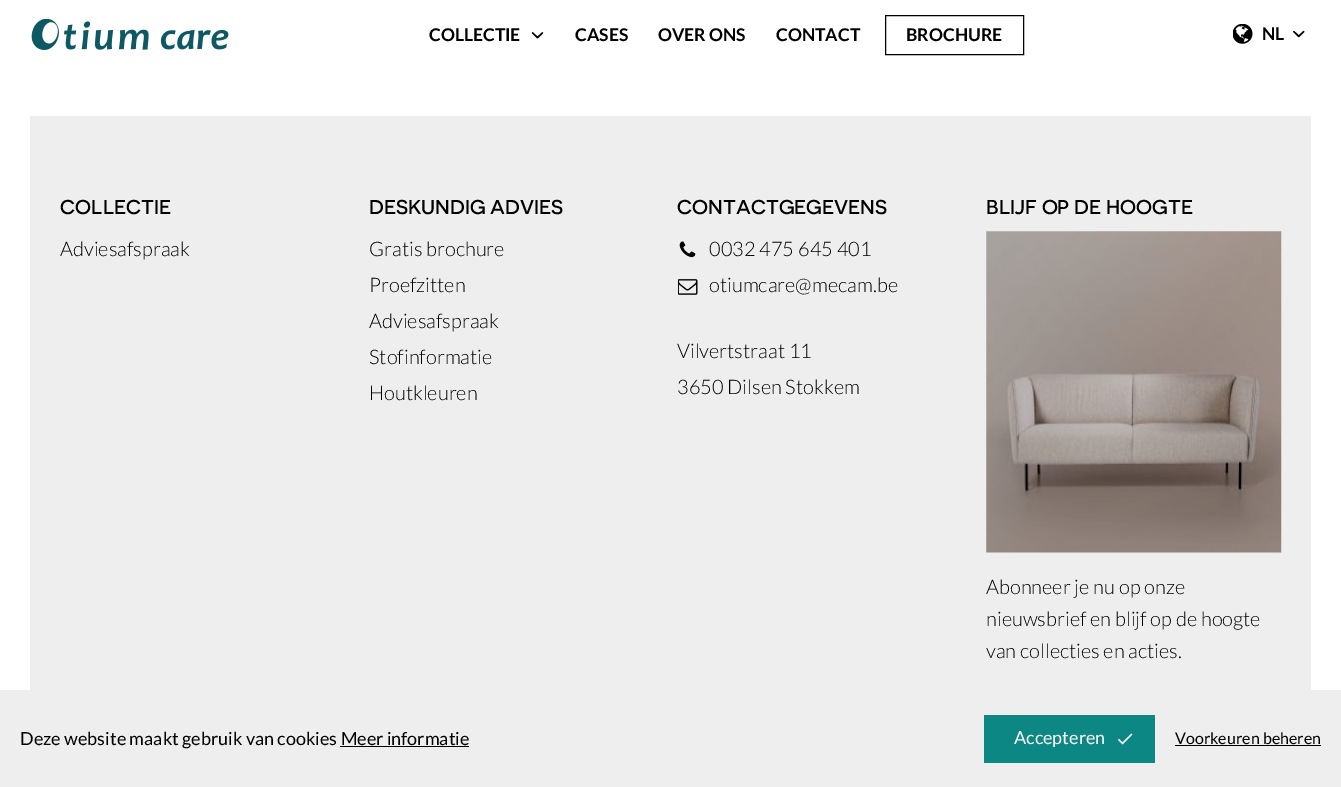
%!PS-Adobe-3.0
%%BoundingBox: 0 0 1341 787
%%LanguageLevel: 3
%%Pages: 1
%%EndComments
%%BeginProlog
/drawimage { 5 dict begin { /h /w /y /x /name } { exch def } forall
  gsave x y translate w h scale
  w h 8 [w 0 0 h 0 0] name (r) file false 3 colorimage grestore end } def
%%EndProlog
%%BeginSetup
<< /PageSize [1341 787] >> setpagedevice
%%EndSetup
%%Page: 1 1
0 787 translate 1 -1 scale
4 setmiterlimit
1 setgray
0 0 1341 787 rectfill
(images/1.raw) 31 19 198 31 drawimage
(images/2.raw) 531 32 13 7 drawimage
0 setgray
885.5 15.5 138 39 rectstroke
(images/3.raw) 1233 24 20 20 drawimage
(images/4.raw) 1293 30 12 8 drawimage
0.933 setgray
30 116 1281 574 rectfill
(images/5.raw) 679 241 17 17 drawimage
(images/6.raw) 678 279 20 16 drawimage
(images/7.raw) 986 231 296 322 drawimage
0 690 1341 97 rectfill
0 setgray
340 746 129 1 rectfill
0.051 0.529 0.514 setrgbcolor
984 715 171 48 rectfill
(images/8.raw) 1118 733 15 12 drawimage
0 setgray
1175 745 146 1 rectfill
/Lato-Bold [17.5 0 0 -17.5 0 0] selectfont
429 41 moveto (COLLECTIE) show
575 41 moveto (CASES) show
658 41 moveto (OVER ONS) show
776 41 moveto (CONTACT) show
906 41 moveto (BROCHURE) show
1262 40 moveto (NL) show
/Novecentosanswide-SemiBold [20 0 0 -20 0 0] selectfont
60 214 moveto (COLLECTIE) show
/Lato-Light [20 0 0 -20 0 0] selectfont
60 256 moveto (Adviesafspraak) show
/Novecentosanswide-SemiBold [20 0 0 -20 0 0] selectfont
369 214 moveto (DESKUNDIG ADVIES) show
/Lato-Light [20 0 0 -20 0 0] selectfont
369 256 moveto (Gratis brochure) show
369 292 moveto (Proefzitten) show
369 328 moveto (Adviesafspraak) show
369 364 moveto (Stofinformatie) show
369 400 moveto (Houtkleuren) show
/Novecentosanswide-SemiBold [20 0 0 -20 0 0] selectfont
677 214 moveto (CONTACTGEGEVENS) show
/Lato-Light [20 0 0 -20 0 0] selectfont
709 256 moveto (0032 475 645 401) show
709 292 moveto (otiumcare@mecam.be) show
677 358 moveto (Vilvertstraat 11) show
677 394 moveto (3650 Dilsen Stokkem) show
/Novecentosanswide-SemiBold [20 0 0 -20 0 0] selectfont
986 214 moveto (BLIJF OP DE HOOGTE) show
/Lato-Light [20 0 0 -20 0 0] selectfont
986 594 moveto (Abonneer je nu op onze) show
986 626 moveto (nieuwsbrief en blijf op de hoogte) show
986 658 moveto (van collecties en acties.) show
/Lato-Regular [18 0 0 -18 0 0] selectfont
20 745 moveto (Deze website maakt gebruik van cookies Meer informatie) show
1 setgray
1014 744 moveto (Accepteren) show
/Lato-Regular [16 0 0 -16 0 0] selectfont
0 setgray
1175 744 moveto (Voorkeuren beheren) show
showpage
%%EOF
